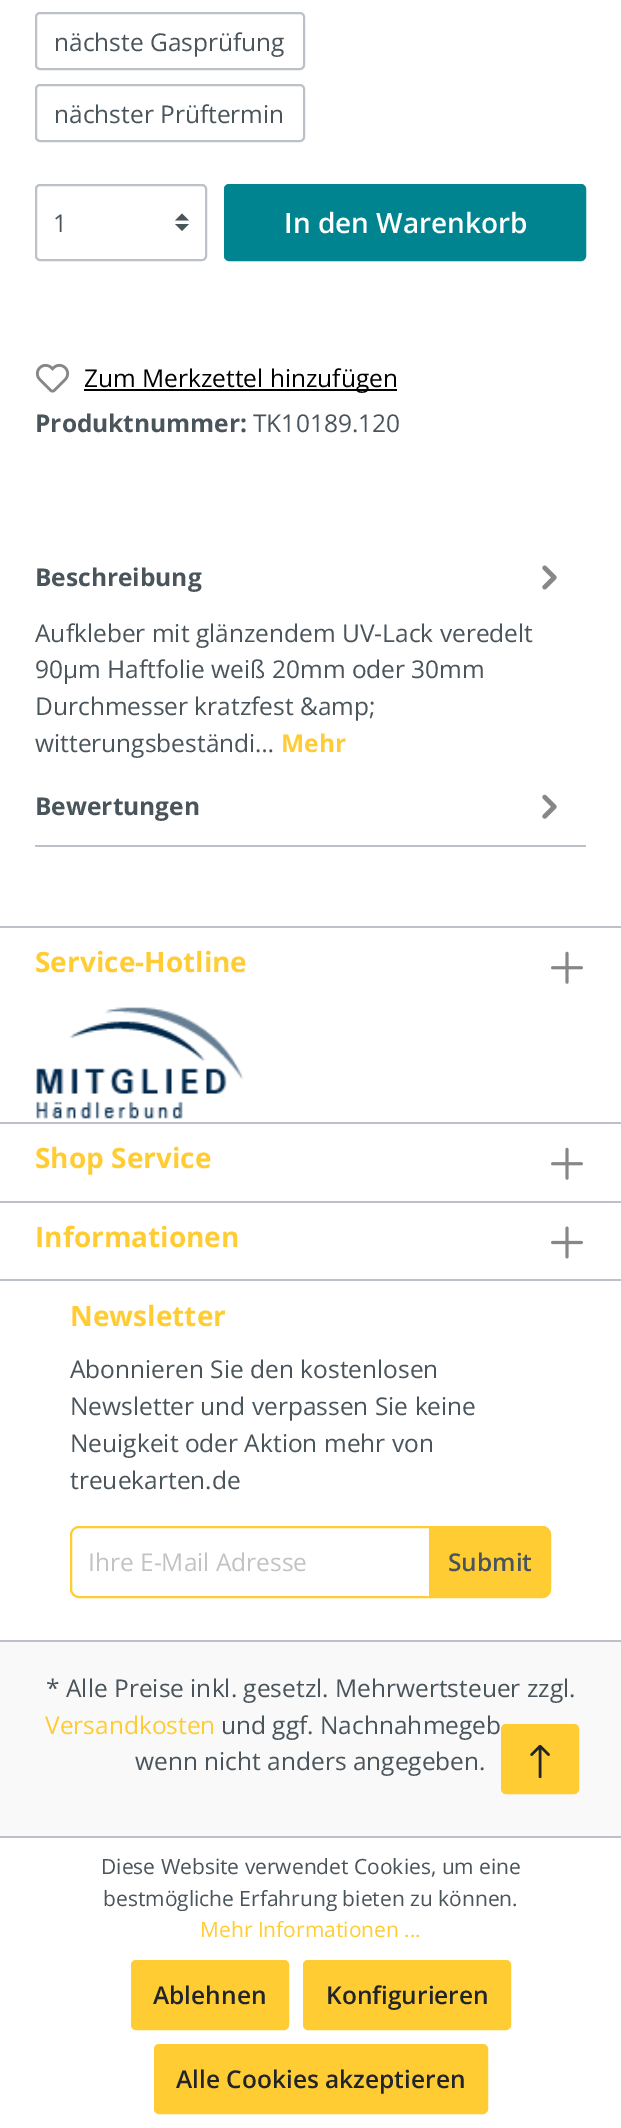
%!PS-Adobe-3.0
%%BoundingBox: 0 0 621 2128
%%LanguageLevel: 3
%%Pages: 1
%%EndComments
%%BeginProlog
/rrect { 5 dict begin { /r /h /w /y /x } { exch def } forall
  x r add y moveto x w add y 2 copy h add r arct x w add y h add x 1 index r arct
  x y h add x y r arct x y 2 copy exch w add exch r arct closepath end } def
/drawimage { 5 dict begin { /h /w /y /x /name } { exch def } forall
  gsave x y translate w h scale
  w h 8 [w 0 0 h 0 0] name (r) file false 3 colorimage grestore end } def
%%EndProlog
%%BeginSetup
<< /PageSize [621 2128] >> setpagedevice
%%EndSetup
%%Page: 1 1
0 2128 translate 1 -1 scale
4 setmiterlimit
1 setgray
0 0 621 2128 rectfill
0.737 0.757 0.78 setrgbcolor
2 setlinewidth
36 13 268 56 4 rrect stroke
36 85 268 56 4 rrect stroke
0.29 0.329 0.357 setrgbcolor
newpath 182 213.5 moveto 175 220.5 lineto 189 220.5 lineto closepath 182 231 moveto 175 224 lineto 189 224 lineto closepath fill
0.737 0.757 0.78 setrgbcolor
36 185 170 75 4 rrect stroke
0 0.518 0.565 setrgbcolor
225 185 360 75 4 rrect gsave fill grestore
stroke
(images/1.raw) 35 363 35 30 drawimage
0 setgray
84 389 313 2 rectfill
0.737 0.757 0.78 setrgbcolor
35 845 551 2 rectfill
(images/2.raw) 542 565 15 25 drawimage
(images/3.raw) 542 794 15 25 drawimage
0 926 621 2 rectfill
0 1122 621 2 rectfill
(images/4.raw) 551 951 32 33 drawimage
(images/5.raw) 36 1007 208 112 drawimage
0 1201 621 2 rectfill
(images/4.raw) 551 1147 32 33 drawimage
0 1279 621 2 rectfill
(images/6.raw) 551 1226 32 33 drawimage
0 1640 621 2 rectfill
1 0.8 0.2 setrgbcolor
71 1527 479 70 8 rrect stroke
newpath 429 1526 moveto 542 1526 lineto 547 1526 551 1530 551 1535 curveto 551 1589 lineto 551 1594 547 1598 542 1598 curveto 429 1598 lineto closepath fill
0.976 setgray
0 1642 621 194 rectfill
1 0.8 0.2 setrgbcolor
502 1725 76 68 4 rrect gsave fill grestore
stroke
(images/7.raw) 530 1745 20 33 drawimage
0.737 0.757 0.78 setrgbcolor
0 1836 621 2 rectfill
1 0.8 0.2 setrgbcolor
132 1961 156 68 4 rrect gsave fill grestore
stroke
304 1961 206 68 4 rrect gsave fill grestore
stroke
155 2045 332 68 4 rrect gsave fill grestore
stroke
/OpenSans-Regular [24.5 0 0 -24.5 0 0] selectfont
0.29 0.329 0.357 setrgbcolor
54 51 moveto (nächste Gasprüfung) show
54 123 moveto (nächster Prüftermin) show
53 232 moveto (1) show
/OpenSans-SemiBold [28 0 0 -28 0 0] selectfont
1 setgray
284 233 moveto (In den Warenkorb) show
/OpenSans-Regular [24.5 0 0 -24.5 0 0] selectfont
0 setgray
84 387 moveto (Zum Merkzettel hinzufügen) show
/OpenSans-Bold [24.5 0 0 -24.5 0 0] selectfont
0.29 0.329 0.357 setrgbcolor
35 432 moveto (Produktnummer:) show
/OpenSans-Regular [24.5 0 0 -24.5 0 0] selectfont
253 432 moveto (TK10189.120) show
/OpenSans-Bold [24.5 0 0 -24.5 0 0] selectfont
35 586 moveto (Beschreibung) show
/OpenSans-Regular [24.5 0 0 -24.5 0 0] selectfont
35 642 moveto (Aufkleber mit glänzendem UV-Lack veredelt) show
35 678 moveto (90µm Haftfolie weiß 20mm oder 30mm) show
35 715 moveto (Durchmesser kratzfest &amp;) show
35 752 moveto (witterungsbeständi…) show
/OpenSans-Bold [24.5 0 0 -24.5 0 0] selectfont
1 0.8 0.2 setrgbcolor
281 752 moveto (Mehr) show
0.29 0.329 0.357 setrgbcolor
35 815 moveto (Bewertungen) show
/OpenSans-Bold [28 0 0 -28 0 0] selectfont
1 0.8 0.2 setrgbcolor
35 972 moveto (Service-Hotline) show
35 1168 moveto (Shop Service) show
35 1247 moveto (Informationen) show
70 1326 moveto (Newsletter) show
/OpenSans-Regular [24.5 0 0 -24.5 0 0] selectfont
0.29 0.329 0.357 setrgbcolor
70 1378 moveto (Abonnieren Sie den kostenlosen) show
70 1415 moveto (Newsletter und verpassen Sie keine) show
70 1452 moveto (Neuigkeit oder Aktion mehr von) show
70 1489 moveto (treuekarten.de) show
0.765 setgray
88 1571 moveto (Ihre E-Mail Adresse) show
/OpenSans-SemiBold [24.5 0 0 -24.5 0 0] selectfont
0.29 0.329 0.357 setrgbcolor
448 1571 moveto (Submit) show
/OpenSans-Regular [24.5 0 0 -24.5 0 0] selectfont
46 1697 moveto (* Alle Preise inkl. gesetzl. Mehrwertsteuer zzgl.) show
1 0.8 0.2 setrgbcolor
45 1734 moveto (Versandkosten) show
0.29 0.329 0.357 setrgbcolor
221 1734 moveto (und ggf. Nachnahmegeb) show
135 1770 moveto (wenn nicht anders angegeben.) show
/OpenSans-Regular [21 0 0 -21 0 0] selectfont
101 1874 moveto (Diese Website verwendet Cookies, um eine) show
103 1906 moveto (bestmögliche Erfahrung bieten zu können.) show
1 0.8 0.2 setrgbcolor
200 1937 moveto (Mehr Informationen ...) show
/OpenSans-SemiBold [24.5 0 0 -24.5 0 0] selectfont
0.129 0.145 0.161 setrgbcolor
153 2004 moveto (Ablehnen) show
326 2004 moveto (Konfigurieren) show
176 2088 moveto (Alle Cookies akzeptieren) show
showpage
%%EOF
